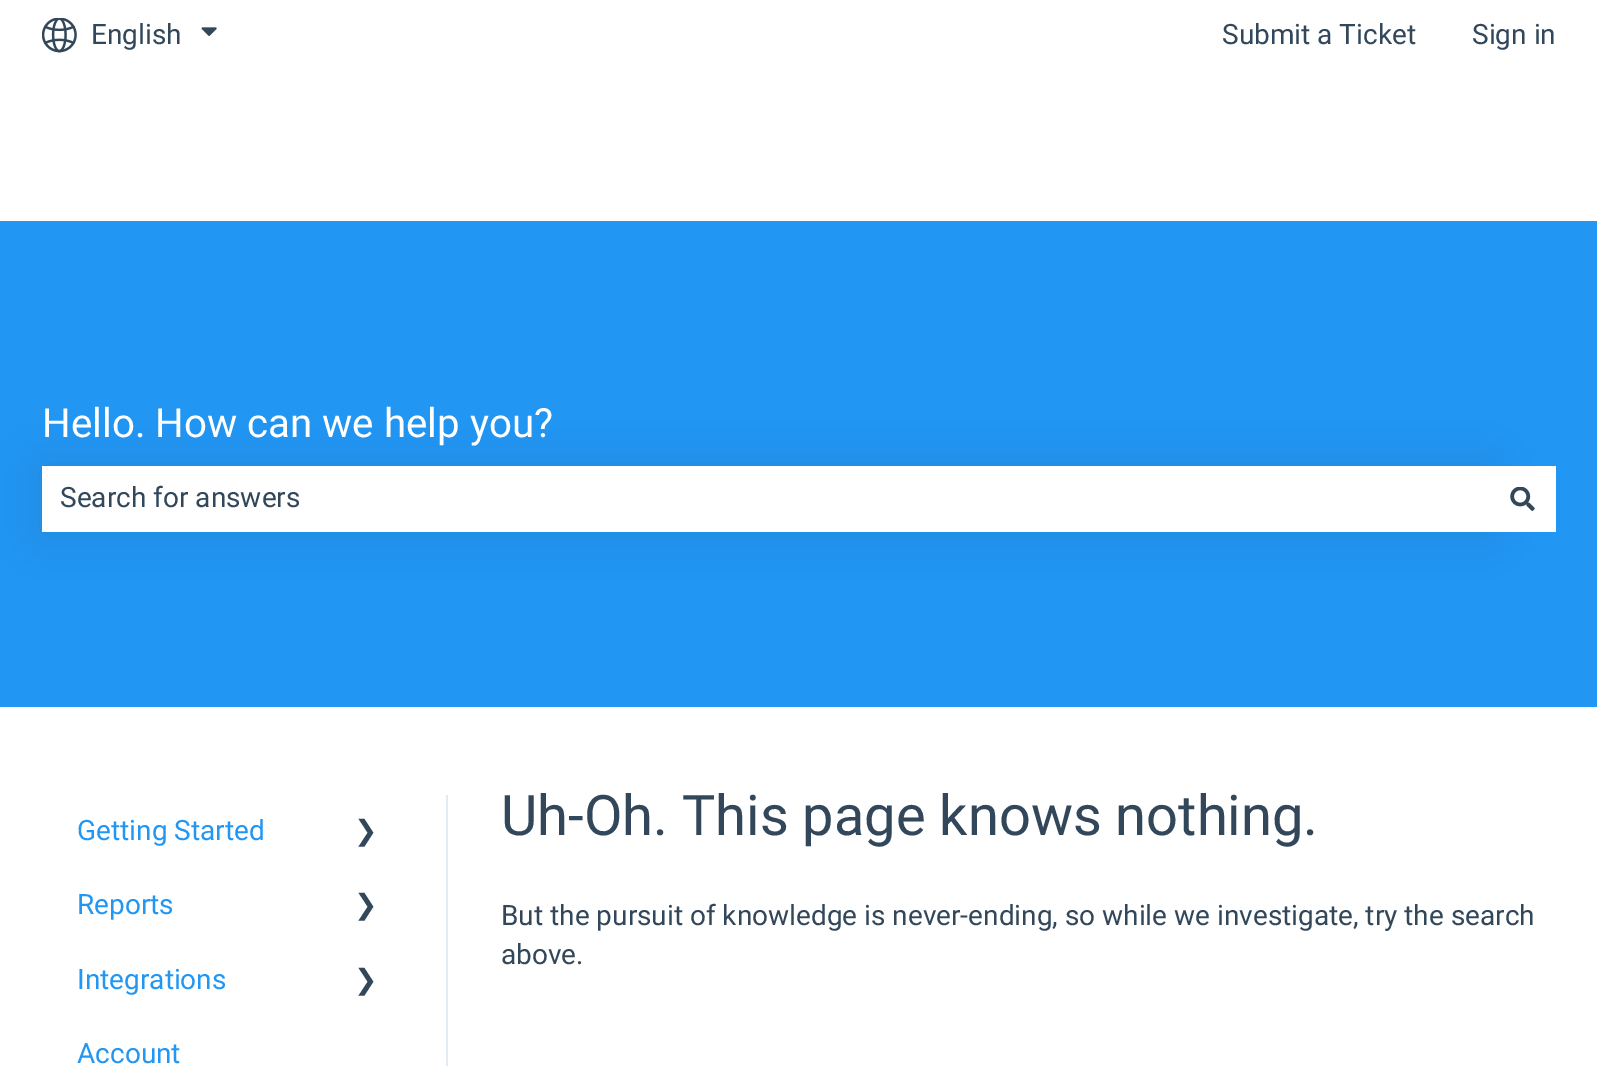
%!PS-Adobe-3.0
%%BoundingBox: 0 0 1597 1066
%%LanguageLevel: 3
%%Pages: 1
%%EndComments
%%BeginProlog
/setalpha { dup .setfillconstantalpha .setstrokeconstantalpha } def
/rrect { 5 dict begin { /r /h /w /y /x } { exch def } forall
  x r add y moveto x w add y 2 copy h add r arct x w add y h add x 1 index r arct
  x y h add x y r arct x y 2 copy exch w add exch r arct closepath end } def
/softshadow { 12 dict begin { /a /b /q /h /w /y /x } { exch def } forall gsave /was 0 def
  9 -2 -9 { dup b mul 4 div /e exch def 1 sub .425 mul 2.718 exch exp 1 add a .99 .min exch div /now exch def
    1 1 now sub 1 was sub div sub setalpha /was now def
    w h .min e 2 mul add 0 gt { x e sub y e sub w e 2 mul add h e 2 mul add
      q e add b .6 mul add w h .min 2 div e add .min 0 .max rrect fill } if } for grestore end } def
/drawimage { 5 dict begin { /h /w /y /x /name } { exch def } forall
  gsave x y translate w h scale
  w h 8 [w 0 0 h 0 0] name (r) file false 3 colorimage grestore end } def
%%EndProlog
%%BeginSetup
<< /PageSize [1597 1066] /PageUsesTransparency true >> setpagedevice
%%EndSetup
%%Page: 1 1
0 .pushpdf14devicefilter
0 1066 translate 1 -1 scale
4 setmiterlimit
1 setgray
0 0 1597 1066 rectfill
(images/1.raw) 42 18 35 35 drawimage
(images/2.raw) 201 27 16 9 drawimage
0.129 0.588 0.953 setrgbcolor
0 221 1597 486 rectfill
0 setgray
42 467 1447 67 0 21 0.08 softshadow
1 setgray
42 466 1514 66 rectfill
(images/3.raw) 1510 487 25 24 drawimage
0.886 0.922 0.957 setrgbcolor
446 795 2 271 rectfill
/Roboto-Regular [28 0 0 -28 0 0] selectfont
0.2 0.278 0.357 setrgbcolor
91 44 moveto (English) show
1222 44 moveto (Submit a Ticket) show
1472 44 moveto (Sign in) show
/Roboto-Regular [40.25 0 0 -40.25 0 0] selectfont
1 setgray
42 437 moveto (Hello. How can we help you?) show
/Roboto-Regular [28 0 0 -28 0 0] selectfont
0.2 0.278 0.357 setrgbcolor
60 507 moveto (Search for answers) show
0.129 0.588 0.953 setrgbcolor
77 840 moveto (Getting Started) show
/DejaVuSans-Regular [28 0 0 -28 0 0] selectfont
0.2 0.278 0.357 setrgbcolor
354 840 moveto (❯) show
/Roboto-Regular [28 0 0 -28 0 0] selectfont
0.129 0.588 0.953 setrgbcolor
77 914 moveto (Reports) show
/DejaVuSans-Regular [28 0 0 -28 0 0] selectfont
0.2 0.278 0.357 setrgbcolor
354 914 moveto (❯) show
/Roboto-Regular [28 0 0 -28 0 0] selectfont
0.129 0.588 0.953 setrgbcolor
77 989 moveto (Integrations) show
/DejaVuSans-Regular [28 0 0 -28 0 0] selectfont
0.2 0.278 0.357 setrgbcolor
354 989 moveto (❯) show
/Roboto-Regular [28 0 0 -28 0 0] selectfont
0.129 0.588 0.953 setrgbcolor
77 1063 moveto (Account) show
/Roboto-Regular [56 0 0 -56 0 0] selectfont
0.2 0.278 0.357 setrgbcolor
501 835 moveto (Uh-Oh. This page knows nothing.) show
/Roboto-Regular [28 0 0 -28 0 0] selectfont
501 925 moveto (But the pursuit of knowledge is never-ending, so while we investigate, try the search) show
501 964 moveto (above.) show
.poppdf14devicefilter showpage
%%EOF
